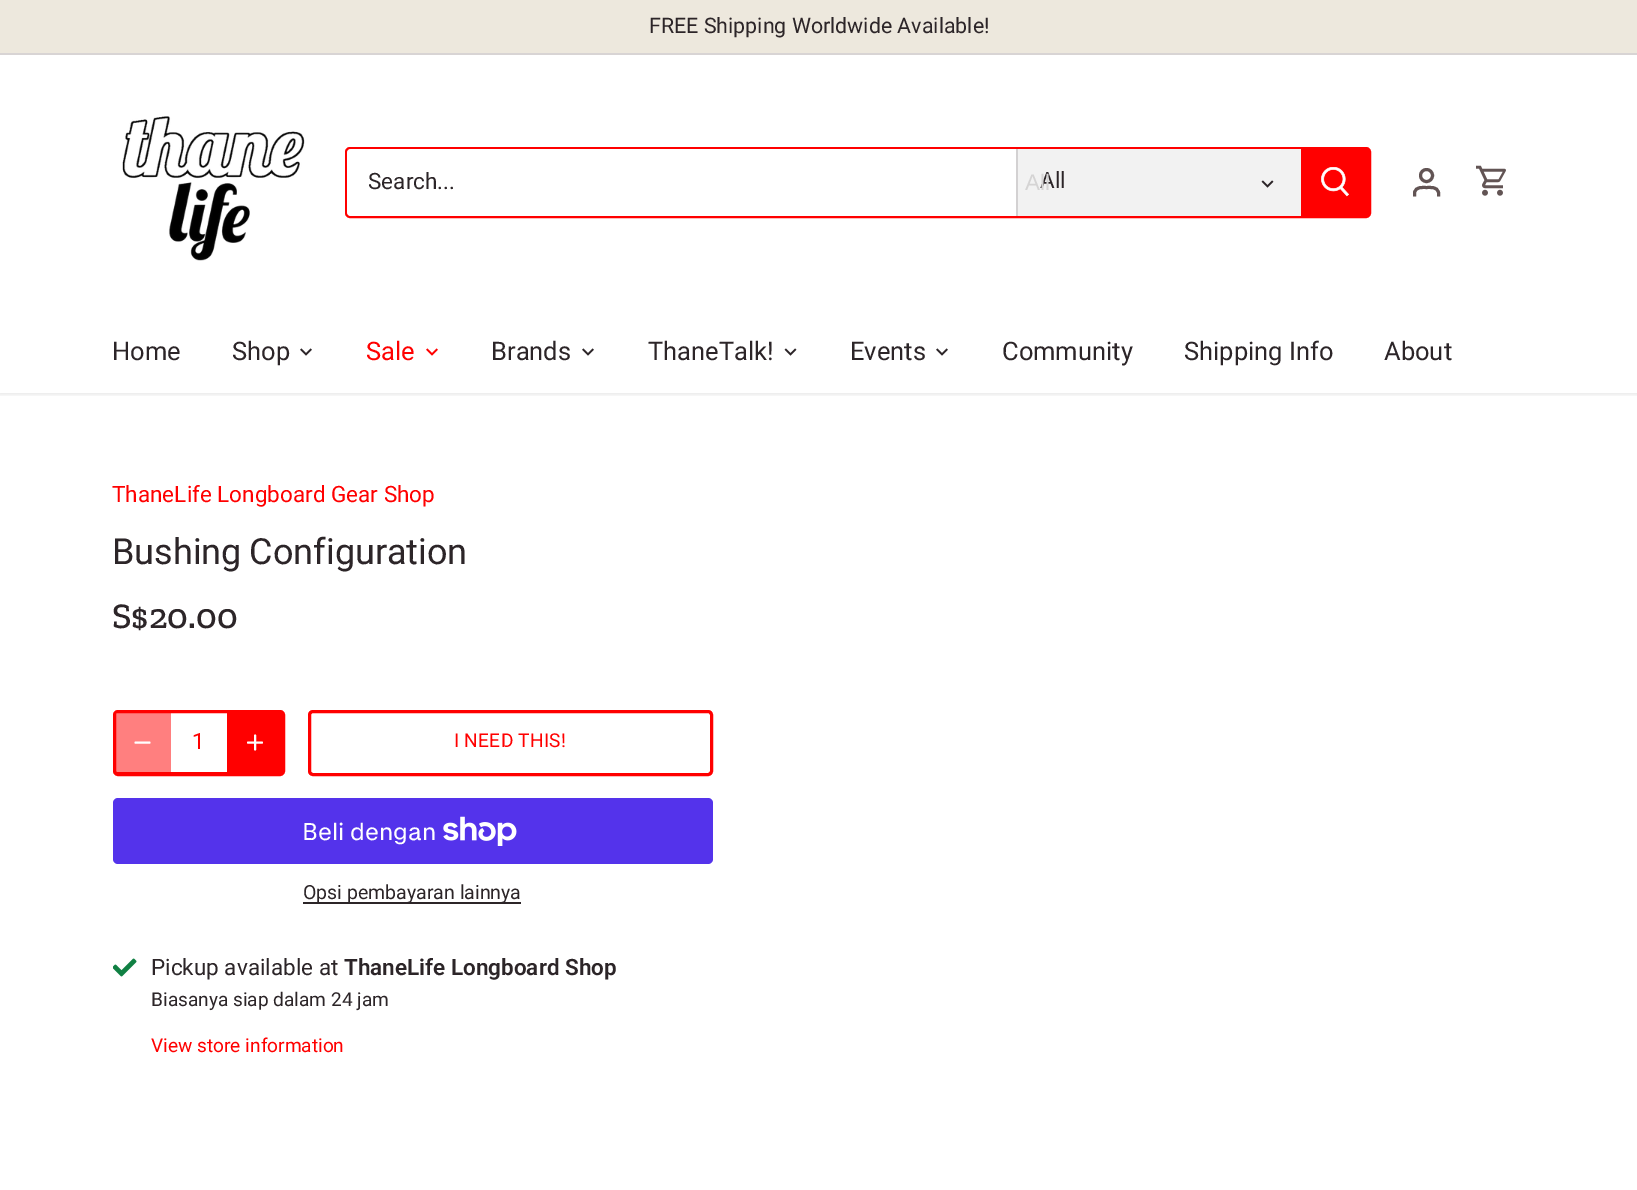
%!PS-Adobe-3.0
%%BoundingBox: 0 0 1637 1190
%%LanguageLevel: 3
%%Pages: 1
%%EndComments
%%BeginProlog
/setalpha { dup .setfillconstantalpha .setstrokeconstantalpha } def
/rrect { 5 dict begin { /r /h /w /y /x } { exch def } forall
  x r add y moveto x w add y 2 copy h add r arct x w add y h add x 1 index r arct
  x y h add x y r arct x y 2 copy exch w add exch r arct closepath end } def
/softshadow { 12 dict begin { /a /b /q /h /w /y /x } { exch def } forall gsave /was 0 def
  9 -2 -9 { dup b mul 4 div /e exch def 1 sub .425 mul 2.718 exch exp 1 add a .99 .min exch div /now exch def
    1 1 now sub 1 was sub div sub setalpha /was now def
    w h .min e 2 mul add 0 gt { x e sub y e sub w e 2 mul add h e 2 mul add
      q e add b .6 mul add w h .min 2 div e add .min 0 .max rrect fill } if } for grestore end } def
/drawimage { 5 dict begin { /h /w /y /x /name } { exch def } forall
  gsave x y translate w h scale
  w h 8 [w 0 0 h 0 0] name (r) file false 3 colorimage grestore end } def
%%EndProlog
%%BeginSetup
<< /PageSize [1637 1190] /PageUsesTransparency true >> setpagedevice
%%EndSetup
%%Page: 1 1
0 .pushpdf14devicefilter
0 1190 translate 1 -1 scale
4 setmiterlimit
1 setgray
0 0 1637 1190 rectfill
gsave
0 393 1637 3 rectclip
0 setgray
-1 53 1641 342 0 2 0.08 softshadow
grestore
0.929 0.91 0.867 setrgbcolor
0 0 1637 53 rectfill
0.847 0.831 0.831 setrgbcolor
0 53 1637 2 rectfill
(images/1.raw) 122 116 183 145 drawimage
1 0 0 setrgbcolor
2 setlinewidth
346 148 1024 69 4 rrect stroke
1 setgray
newpath 352 149 moveto 1016 149 lineto 1016 216 lineto 352 216 lineto 349 216 347 214 347 211 curveto 347 154 lineto 347 151 349 149 352 149 curveto closepath fill
0.949 setgray
1018 149 283 67 rectfill
0.827 0.82 0.824 setrgbcolor
1016 149 2 67 rectfill
(images/2.raw) 1261 180 13 8 drawimage
1 0 0 setrgbcolor
newpath 1301 149 moveto 1367 149 lineto 1368.5 149 1370 150.5 1370 152 curveto 1370 213 lineto 1370 214.5 1368.5 216 1367 216 curveto 1301 216 lineto closepath fill
(images/3.raw) 1321 167 28 30 drawimage
0.384 0.329 0.329 setrgbcolor
3 setlinewidth
newpath 1426.5 175.5 6 0 360 arc closepath stroke
newpath 1438.5 196.5 moveto 1438.5 192.5 lineto 1437 186.5 1431 187.5 1426.5 187.5 curveto 1422 187.5 1416 186.5 1414.5 192.5 curveto 1414.5 196.5 lineto stroke
(images/4.raw) 1476 165 30 31 drawimage
(images/5.raw) 300 348 12 8 drawimage
(images/6.raw) 426 348 12 8 drawimage
(images/5.raw) 582 348 12 8 drawimage
(images/7.raw) 784 348 13 8 drawimage
(images/5.raw) 936 348 12 8 drawimage
1 0 0 setrgbcolor
2 setlinewidth
115 712 168 61 2 rrect stroke
114 711 170 64 4 rrect stroke
0.5 setalpha
newpath 119 711 moveto 171 711 lineto 171 774 lineto 119 774 lineto 116 774 114 772 114 769 curveto 114 716 lineto 114 713 116 711 119 711 curveto closepath fill
1 setalpha
1 setgray
1 setlinecap
1 setlinejoin
newpath 135.5 742.5 moveto 149.5 742.5 lineto stroke
1 0 0 setrgbcolor
newpath 227 711 moveto 279 711 lineto 282 711 284 713 284 716 curveto 284 769 lineto 284 772 282 774 279 774 curveto 227 774 lineto closepath fill
1 setgray
newpath 255 735.5 moveto 255 749.5 lineto 248 742.5 moveto 262 742.5 lineto stroke
1 0 0 setrgbcolor
3 setlinewidth
0 setlinecap
0 setlinejoin
309.5 711.5 402 63 3.5 rrect stroke
0.329 0.2 0.922 setrgbcolor
113 798 600 66 5 rrect fill
(images/8.raw) 443 816 74 30 drawimage
0.173 0.145 0.157 setrgbcolor
303 902 218 2 rectfill
(images/9.raw) 113 958 24 19 drawimage
/Roboto-Regular [21.4 0 0 -21.4 0 0] selectfont
649 33 moveto (FREE Shipping Worldwide Available!) show
/Roboto-Regular [22.5 0 0 -22.5 0 0] selectfont
368 189 moveto (Search...) show
1040 188 moveto (All) show
/LiberationSans-Regular [22.5 0 0 -22.5 0 0] selectfont
0.835 0.831 0.831 setrgbcolor
1025 190 moveto (All) show
/Roboto-Regular [25.5 0 0 -25.5 0 0] selectfont
0.173 0.145 0.157 setrgbcolor
112 360 moveto (Home) show
232 360 moveto (Shop) show
1 0 0 setrgbcolor
366 360 moveto (Sale) show
0.173 0.145 0.157 setrgbcolor
491 360 moveto (Brands) show
648 360 moveto (ThaneTalk!) show
850 360 moveto (Events) show
1002 360 moveto (Community) show
1184 360 moveto (Shipping Info) show
1384 360 moveto (About) show
/Roboto-Regular [22.5 0 0 -22.5 0 0] selectfont
1 0 0 setrgbcolor
112 502 moveto (ThaneLife Longboard Gear Shop) show
/Roboto-Regular [36 0 0 -36 0 0] selectfont
0.173 0.145 0.157 setrgbcolor
112 564 moveto -1 0 32 (Bushing Configuration) widthshow
/ZillaSlab-Medium [36 0 0 -36 0 0] selectfont
112 628 moveto (S$20.00) show
/Roboto-Regular [22.5 0 0 -22.5 0 0] selectfont
1 0 0 setrgbcolor
192 749 moveto (1) show
/Roboto-Regular [19.1 0 0 -19.1 0 0] selectfont
454 747 moveto 0.25 0 (I NEED THIS!) ashow
1 setgray
newpath 515 747.5 moveto 512 751 506.5 751 503.5 747.5 curveto stroke
/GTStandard-Regular [24 0 0 -24 0 0] selectfont
302 840 moveto (Beli dengan) show
/Roboto-Regular [19.5 0 0 -19.5 0 0] selectfont
0.173 0.145 0.157 setrgbcolor
303 899 moveto (Opsi pembayaran lainnya) show
/Roboto-Regular [22.5 0 0 -22.5 0 0] selectfont
151 975 moveto (Pickup available at) show
/Roboto-SemiBold [22.5 0 0 -22.5 0 0] selectfont
344 975 moveto (ThaneLife Longboard Shop) show
/Roboto-Regular [19.1 0 0 -19.1 0 0] selectfont
151 1006 moveto (Biasanya siap dalam 24 jam) show
1 0 0 setrgbcolor
151 1052 moveto (View store information) show
.poppdf14devicefilter showpage
%%EOF
